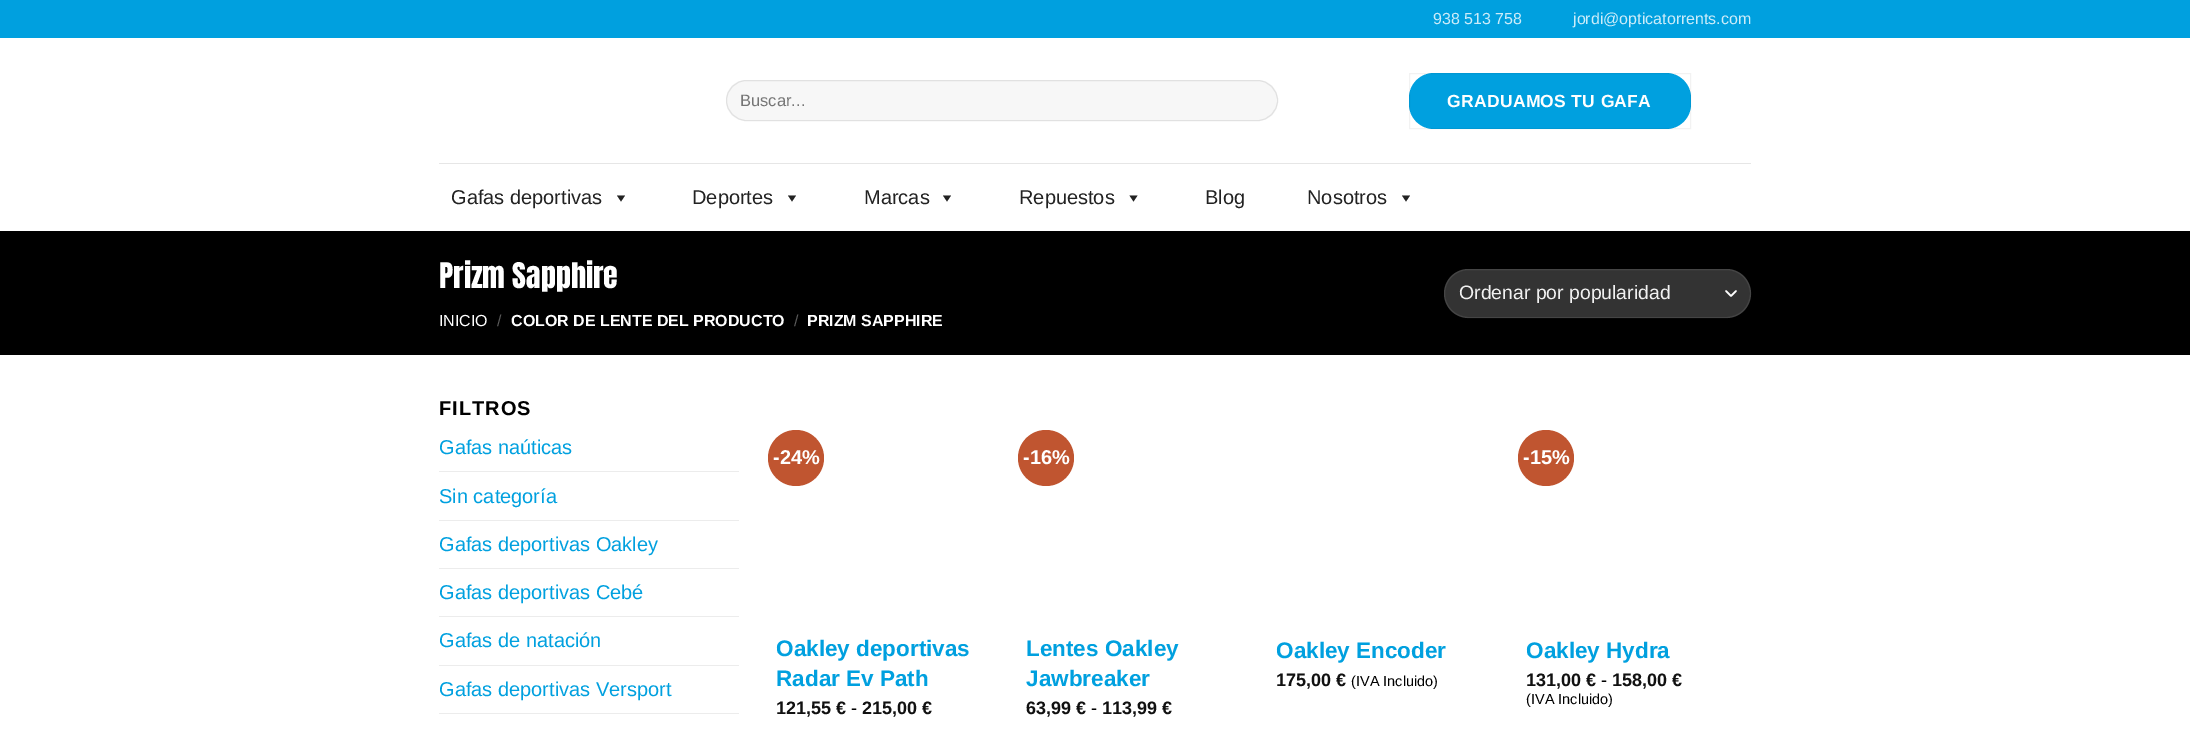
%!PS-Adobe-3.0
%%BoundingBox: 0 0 2190 729
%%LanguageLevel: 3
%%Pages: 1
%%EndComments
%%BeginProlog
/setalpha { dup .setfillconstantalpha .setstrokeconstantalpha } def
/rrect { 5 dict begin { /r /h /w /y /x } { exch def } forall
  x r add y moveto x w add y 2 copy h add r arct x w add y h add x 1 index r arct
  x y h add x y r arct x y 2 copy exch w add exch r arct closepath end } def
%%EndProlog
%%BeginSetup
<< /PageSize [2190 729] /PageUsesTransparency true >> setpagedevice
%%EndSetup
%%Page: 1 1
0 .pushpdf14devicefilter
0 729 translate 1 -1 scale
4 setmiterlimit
1 setgray
0 0 2190 729 rectfill
0 0.627 0.875 setrgbcolor
0 0 2190 38 rectfill
0.969 setgray
726 80 552 41 20.5 rrect fill
0.09 setalpha
0 setgray
726.5 80.5 551 40 20 rrect stroke
1 setalpha
0 0.627 0.875 setrgbcolor
1409 73 282 56 25 rrect fill
0.05 setalpha
0 setgray
1409.5 73.5 281 55 rectstroke
1 setalpha
0.902 setgray
439 163 1312 1 rectfill
0.133 setgray
newpath 625 195.5 moveto 621 201.5 lineto 617 195.5 lineto closepath fill
newpath 796 195.5 moveto 792 201.5 lineto 788 195.5 lineto closepath fill
newpath 951 195.5 moveto 947 201.5 lineto 943 195.5 lineto closepath fill
newpath 1137.5 195.5 moveto 1133.5 201.5 lineto 1129.5 195.5 lineto closepath fill
newpath 1410 195.5 moveto 1406 201.5 lineto 1402 195.5 lineto closepath fill
0 setgray
0 231 2190 124 rectfill
0.2 setgray
1444 269 307 49 24.5 rrect fill
1 setgray
1.7 setlinewidth
1 setlinecap
1 setlinejoin
newpath 1726 291 moveto 1731 296 lineto 1736 291 lineto stroke
0.09 setalpha
1 setlinewidth
0 setlinecap
0 setlinejoin
1444.5 269.5 306 48 24 rrect stroke
1 setalpha
0.925 setgray
439 471 300 1 rectfill
439 520 300 1 rectfill
439 568 300 1 rectfill
439 616 300 1 rectfill
439 665 300 1 rectfill
439 713 300 1 rectfill
0.753 0.333 0.188 setrgbcolor
newpath 796 458 28 0 360 arc closepath fill
newpath 1046 458 28 0 360 arc closepath fill
newpath 1546 458 28 0 360 arc closepath fill
/LiberationSans-Regular [16 0 0 -16 0 0] selectfont
0.8 0.925 0.976 setrgbcolor
1433 24 moveto (938 513 758) show
1573 24 moveto (jordi@opticatorrents.com) show
/LiberationSans-Regular [16.5 0 0 -16.5 0 0] selectfont
0.459 setgray
740 106 moveto (Buscar...) show
/LiberationSans-Bold [17.5 0 0 -17.5 0 0] selectfont
1 setgray
1447 107 moveto 0.3 0 (GRADUAMOS TU GAFA) ashow
/LiberationSans-Regular [20 0 0 -20 0 0] selectfont
0.133 setgray
451 204 moveto (Gafas deportivas) show
692 204 moveto (Deportes) show
864 204 moveto (Marcas) show
1019 204 moveto (Repuestos) show
1205 204 moveto (Blog) show
1307 204 moveto (Nosotros) show
/Anton-Regular [30 0 0 -30 0 0] selectfont
1 setgray
439 288 moveto (Prizm Sapphire) show
/LiberationSans-Regular [16 0 0 -16 0 0] selectfont
439 326 moveto (INICIO) show
0.349 setgray
497 326 moveto (/) show
/LiberationSans-Bold [16 0 0 -16 0 0] selectfont
1 setgray
511 326 moveto (COLOR DE LENTE DEL PRODUCTO) show
/LiberationSans-Regular [16 0 0 -16 0 0] selectfont
0.349 setgray
794 326 moveto (/) show
/LiberationSans-Bold [16 0 0 -16 0 0] selectfont
1 setgray
807 326 moveto (PRIZM SAPPHIRE) show
/LiberationSans-Regular [19.4 0 0 -19.4 0 0] selectfont
0.945 setgray
1459 299 moveto (Ordenar por popularidad) show
/LiberationSans-Bold [20 0 0 -20 0 0] selectfont
0 setgray
439 415 moveto 1 0 (FILTROS) ashow
/LiberationSans-Regular [20 0 0 -20 0 0] selectfont
0 0.627 0.875 setrgbcolor
439 454 moveto (Gafas naúticas) show
439 503 moveto (Sin categoría) show
439 551 moveto (Gafas deportivas Oakley) show
439 599 moveto (Gafas deportivas Cebé) show
439 647 moveto (Gafas de natación) show
439 696 moveto (Gafas deportivas Versport) show
/LiberationSans-Bold [20 0 0 -20 0 0] selectfont
1 setgray
773 464 moveto (-24%) show
/LiberationSans-Bold [22.5 0 0 -22.5 0 0] selectfont
0 0.627 0.875 setrgbcolor
776 656 moveto (Oakley deportivas) show
776 686 moveto (Radar Ev Path) show
/LiberationSans-Bold [18 0 0 -18 0 0] selectfont
0.067 setgray
776 714 moveto (121,55 €) show
/LiberationSans-Regular [18 0 0 -18 0 0] selectfont
0 setgray
851 714 moveto (-) show
/LiberationSans-Bold [18 0 0 -18 0 0] selectfont
0.067 setgray
862 714 moveto (215,00 €) show
/LiberationSans-Bold [20 0 0 -20 0 0] selectfont
1 setgray
1023 464 moveto (-16%) show
/LiberationSans-Bold [22.5 0 0 -22.5 0 0] selectfont
0 0.627 0.875 setrgbcolor
1026 656 moveto (Lentes Oakley) show
1026 686 moveto (Jawbreaker) show
/LiberationSans-Bold [18 0 0 -18 0 0] selectfont
0.067 setgray
1026 714 moveto (63,99 €) show
/LiberationSans-Regular [18 0 0 -18 0 0] selectfont
0 setgray
1091 714 moveto (-) show
/LiberationSans-Bold [18 0 0 -18 0 0] selectfont
0.067 setgray
1102 714 moveto (113,99 €) show
/LiberationSans-Bold [22.5 0 0 -22.5 0 0] selectfont
0 0.627 0.875 setrgbcolor
1276 658 moveto (Oakley Encoder) show
/LiberationSans-Bold [18 0 0 -18 0 0] selectfont
0.067 setgray
1276 686 moveto (175,00 €) show
/LiberationSans-Regular [14.5 0 0 -14.5 0 0] selectfont
0 setgray
1351 686 moveto (\(IVA Incluido\)) show
/LiberationSans-Bold [20 0 0 -20 0 0] selectfont
1 setgray
1523 464 moveto (-15%) show
/LiberationSans-Bold [22.5 0 0 -22.5 0 0] selectfont
0 0.627 0.875 setrgbcolor
1526 658 moveto (Oakley Hydra) show
/LiberationSans-Bold [18 0 0 -18 0 0] selectfont
0.067 setgray
1526 686 moveto (131,00 €) show
/LiberationSans-Regular [18 0 0 -18 0 0] selectfont
0 setgray
1601 686 moveto (-) show
/LiberationSans-Bold [18 0 0 -18 0 0] selectfont
0.067 setgray
1612 686 moveto (158,00 €) show
/LiberationSans-Regular [14.5 0 0 -14.5 0 0] selectfont
0 setgray
1526 704 moveto (\(IVA Incluido\)) show
.poppdf14devicefilter showpage
%%EOF
